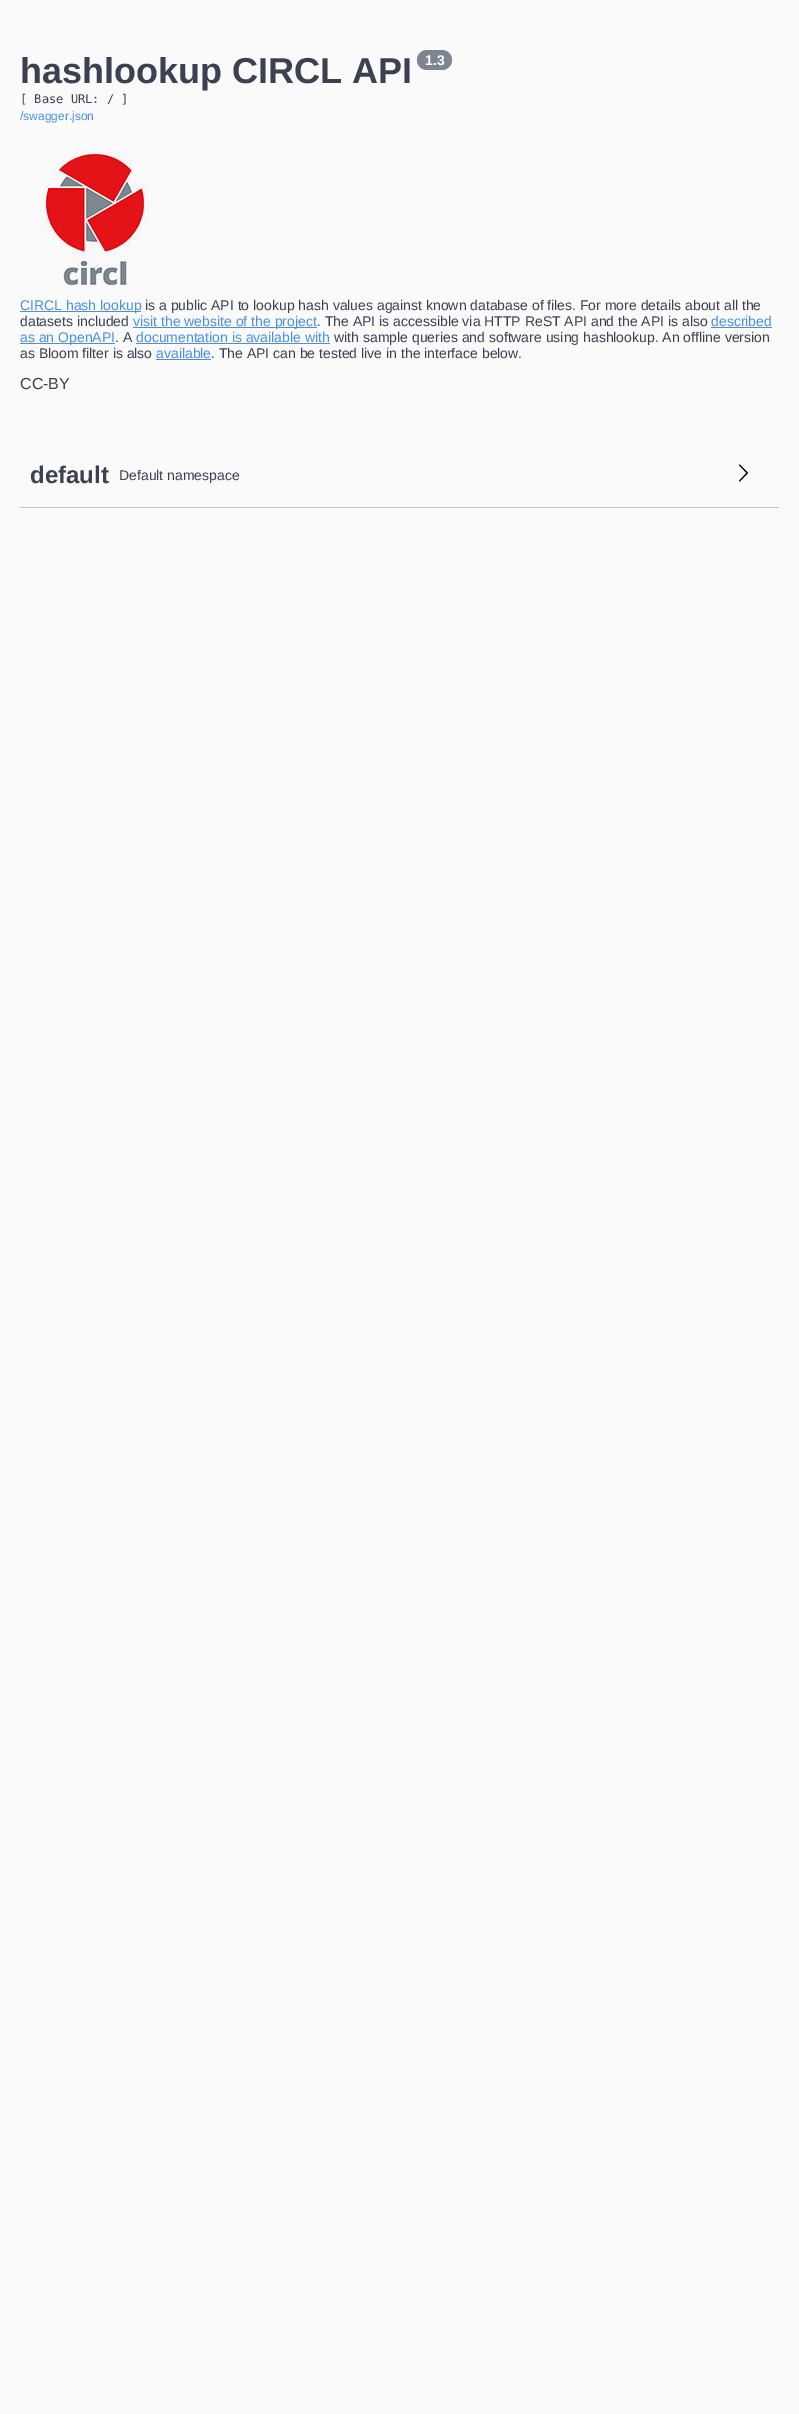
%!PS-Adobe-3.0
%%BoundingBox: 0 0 799 2414
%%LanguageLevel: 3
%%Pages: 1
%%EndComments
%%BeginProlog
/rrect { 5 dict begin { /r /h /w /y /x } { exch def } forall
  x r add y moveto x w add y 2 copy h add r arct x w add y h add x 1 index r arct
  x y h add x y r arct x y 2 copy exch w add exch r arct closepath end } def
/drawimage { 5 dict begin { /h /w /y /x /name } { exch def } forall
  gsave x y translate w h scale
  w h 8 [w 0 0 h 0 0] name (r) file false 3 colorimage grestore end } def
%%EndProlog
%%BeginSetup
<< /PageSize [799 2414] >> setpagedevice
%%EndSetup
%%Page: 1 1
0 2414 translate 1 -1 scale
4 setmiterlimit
0.98 setgray
0 0 799 2414 rectfill
0.49 0.518 0.573 setrgbcolor
417 50 35 20 10 rrect fill
(images/1.raw) 44 152 104 136 drawimage
0.286 0.565 0.886 setrgbcolor
20 311 121 1 rectfill
133 327 184 1 rectfill
711 327 61 1 rectfill
20 343 95 1 rectfill
136 343 194 1 rectfill
156 359 55 1 rectfill
0.757 0.765 0.78 setrgbcolor
20 507 759 1 rectfill
(images/2.raw) 739 464 9 18 drawimage
/LiberationSans-Bold [36 0 0 -36 0 0] selectfont
0.231 0.255 0.318 setrgbcolor
20 83 moveto (hashlookup CIRCL API) show
/LiberationSans-Bold [14 0 0 -14 0 0] selectfont
1 setgray
425 65 moveto (1.3) show
/DejaVuSansMono-Regular [12 0 0 -12 0 0] selectfont
0.231 0.255 0.318 setrgbcolor
20 103 moveto ([ Base URL: / ]) show
/LiberationSans-Regular [12 0 0 -12 0 0] selectfont
0.286 0.565 0.886 setrgbcolor
20 120 moveto (/swagger.json) show
/LiberationSans-Regular [14 0 0 -14 0 0] selectfont
20 310 moveto (CIRCL hash lookup) show
0.231 0.255 0.318 setrgbcolor
145 310 moveto (is a public API to lookup hash values against known database of files. For more details about all the) show
20 326 moveto (datasets included) show
0.286 0.565 0.886 setrgbcolor
133 326 moveto (visit the website of the project) show
0.231 0.255 0.318 setrgbcolor
317 326 moveto (. The API is accessible via HTTP ReST API and the API is also) show
0.286 0.565 0.886 setrgbcolor
711 326 moveto (described) show
20 342 moveto (as an OpenAPI) show
0.231 0.255 0.318 setrgbcolor
115 342 moveto (. A) show
0.286 0.565 0.886 setrgbcolor
136 342 moveto (documentation is available with) show
0.231 0.255 0.318 setrgbcolor
334 342 moveto (with sample queries and software using hashlookup. An offline version) show
20 358 moveto (as Bloom filter is also) show
0.286 0.565 0.886 setrgbcolor
156 358 moveto (available) show
0.231 0.255 0.318 setrgbcolor
211 358 moveto (. The API can be tested live in the interface below.) show
/LiberationSans-Regular [16 0 0 -16 0 0] selectfont
20 389 moveto (CC-BY) show
/LiberationSans-Bold [24 0 0 -24 0 0] selectfont
30 483 moveto (default) show
/LiberationSans-Regular [14 0 0 -14 0 0] selectfont
119 480 moveto (Default namespace) show
showpage
%%EOF
